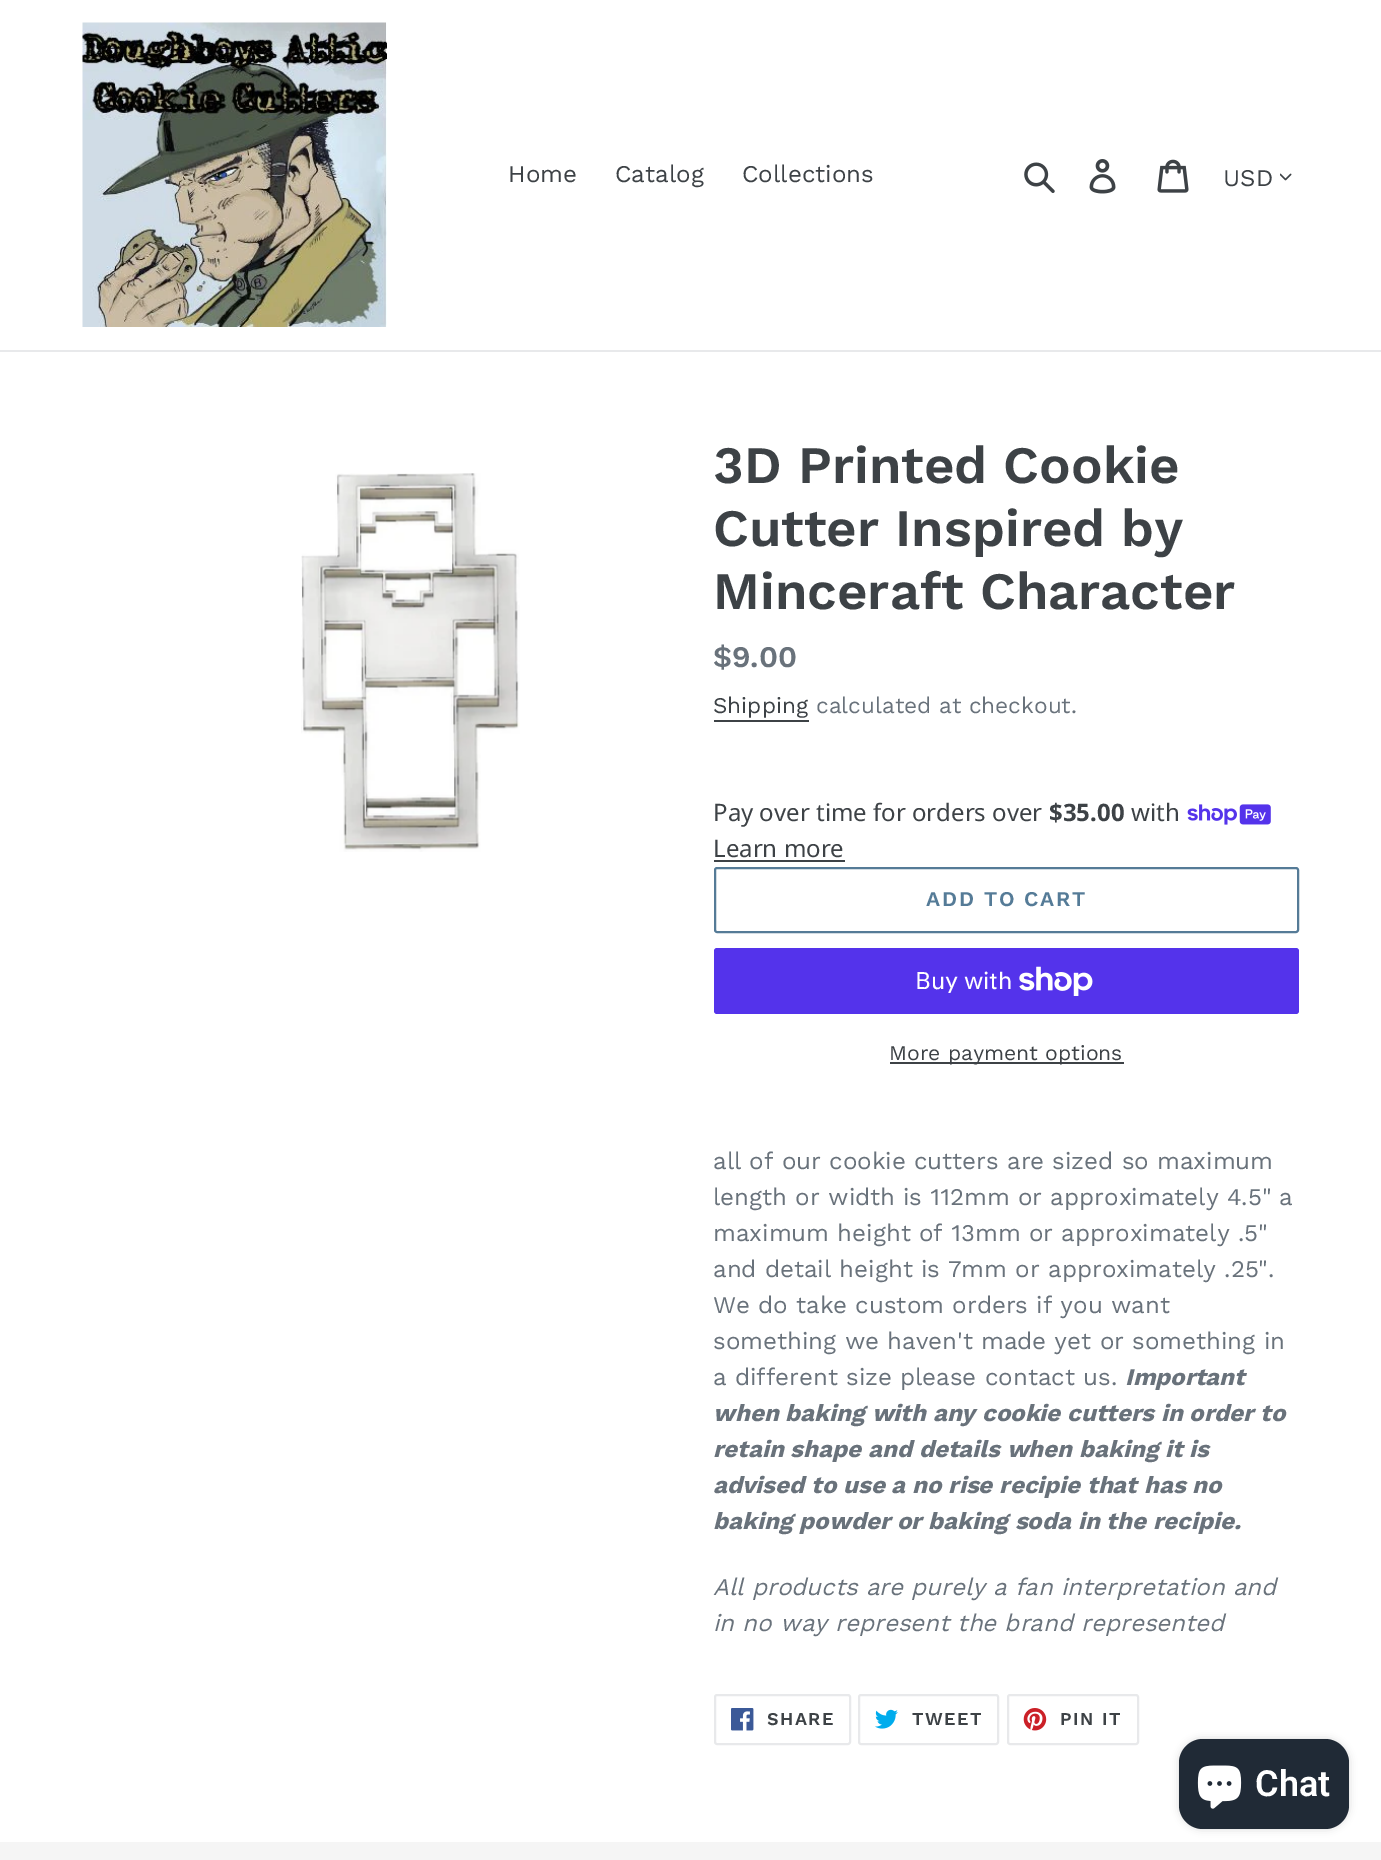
%!PS-Adobe-3.0
%%BoundingBox: 0 0 1381 1860
%%LanguageLevel: 3
%%Pages: 1
%%EndComments
%%BeginProlog
/setalpha { dup .setfillconstantalpha .setstrokeconstantalpha } def
/rrect { 5 dict begin { /r /h /w /y /x } { exch def } forall
  x r add y moveto x w add y 2 copy h add r arct x w add y h add x 1 index r arct
  x y h add x y r arct x y 2 copy exch w add exch r arct closepath end } def
/softshadow { 12 dict begin { /a /b /q /h /w /y /x } { exch def } forall gsave /was 0 def
  9 -2 -9 { dup b mul 4 div /e exch def 1 sub .425 mul 2.718 exch exp 1 add a .99 .min exch div /now exch def
    1 1 now sub 1 was sub div sub setalpha /was now def
    w h .min e 2 mul add 0 gt { x e sub y e sub w e 2 mul add h e 2 mul add
      q e add b .6 mul add w h .min 2 div e add .min 0 .max rrect fill } if } for grestore end } def
/drawimage { 5 dict begin { /h /w /y /x /name } { exch def } forall
  gsave x y translate w h scale
  w h 8 [w 0 0 h 0 0] name (r) file false 3 colorimage grestore end } def
%%EndProlog
%%BeginSetup
<< /PageSize [1381 1860] /PageUsesTransparency true >> setpagedevice
%%EndSetup
%%Page: 1 1
0 .pushpdf14devicefilter
0 1860 translate 1 -1 scale
4 setmiterlimit
1 setgray
0 0 1381 1860 rectfill
0.91 0.914 0.922 setrgbcolor
0 350 1381 2 rectfill
(images/1.raw) 82 22 305 305 drawimage
(images/2.raw) 1024 162 31 31 drawimage
(images/3.raw) 1089 159 27 35 drawimage
(images/4.raw) 1157 159 32 34 drawimage
(images/5.raw) 1280 173 12 8 drawimage
(images/6.raw) 301 473 219 379 drawimage
0.239 0.259 0.275 setrgbcolor
714 720 95 2 rectfill
(images/7.raw) 1187 804 84 21 drawimage
714 860 131 2 rectfill
0.333 0.482 0.592 setrgbcolor
2 setlinewidth
715 868 583 64 2 rrect stroke
0.329 0.2 0.922 setrgbcolor
714 948 585 66 3 rrect fill
(images/8.raw) 1019 966 74 30 drawimage
0.239 0.259 0.275 setrgbcolor
890 1062 234 2 rectfill
0.91 0.914 0.922 setrgbcolor
715 1695 135 49 2 rrect stroke
(images/9.raw) 731 1708 23 23 drawimage
859 1695 139 49 2 rrect stroke
(images/10.raw) 875 1709 23 20 drawimage
1008 1695 130 49 2 rrect stroke
(images/11.raw) 1023 1708 24 23 drawimage
0.961 setgray
0 1842 1381 18 rectfill
0 setgray
1179 1739 170 90 24 4 0.15 softshadow
0.125 0.165 0.212 setrgbcolor
1179 1739 170 90 24 rrect fill
(images/12.raw) 1197 1765 45 44 drawimage
/WorkSans-Regular [24 0 0 -24 0 0] selectfont
0.239 0.259 0.275 setrgbcolor
508 182 moveto (Home) show
615 182 moveto (Catalog) show
742 182 moveto (Collections) show
1223 186 moveto (USD) show
/WorkSans-SemiBold [52.5 0 0 -52.5 0 0] selectfont
713 483 moveto (3D Printed Cookie) show
713 546 moveto (Cutter Inspired by) show
713 609 moveto (Minceraft Character) show
/WorkSans-SemiBold [30 0 0 -30 0 0] selectfont
0.412 0.447 0.482 setrgbcolor
713 667 moveto ($9.00) show
/WorkSans-Regular [22.5 0 0 -22.5 0 0] selectfont
0.239 0.259 0.275 setrgbcolor
713 713 moveto (Shipping) show
0.412 0.447 0.482 setrgbcolor
816 713 moveto (calculated at checkout.) show
/NotoSans-Regular [24 0 0 -24 0 0] selectfont
0.239 0.259 0.275 setrgbcolor
713 821 moveto (Pay over time for orders over) show
/NotoSans-Bold [24 0 0 -24 0 0] selectfont
1049 821 moveto ($35.00) show
/NotoSans-Regular [24 0 0 -24 0 0] selectfont
1131 821 moveto (with) show
713 857 moveto (Learn more) show
/WorkSans-SemiBold [21 0 0 -21 0 0] selectfont
0.333 0.482 0.592 setrgbcolor
926 906 moveto 1.75 0 (ADD TO CART) ashow
/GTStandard-Regular [24 0 0 -24 0 0] selectfont
1 setgray
915 989 moveto (Buy with) show
/WorkSans-Regular [21 0 0 -21 0 0] selectfont
0.239 0.259 0.275 setrgbcolor
889 1060 moveto (More payment options) show
/WorkSans-Regular [24 0 0 -24 0 0] selectfont
0.412 0.447 0.482 setrgbcolor
713 1169 moveto (all of our cookie cutters are sized so maximum) show
713 1205 moveto (length or width is 112mm or approximately 4.5" a) show
713 1241 moveto (maximum height of 13mm or approximately .5") show
713 1277 moveto (and detail height is 7mm or approximately .25".) show
713 1313 moveto (We do take custom orders if you want) show
713 1349 moveto (something we haven't made yet or something in) show
713 1385 moveto (a different size please contact us.) show
/WorkSans-BoldItalic [24 0 0 -24 0 0] selectfont
1125 1385 moveto (Important) show
713 1421 moveto (when baking with any cookie cutters in order to) show
713 1457 moveto (retain shape and details when baking it is) show
713 1493 moveto (advised to use a no rise recipie that has no) show
713 1529 moveto (baking powder or baking soda in the recipie.) show
/WorkSans-Italic [24 0 0 -24 0 0] selectfont
713 1595 moveto (All products are purely a fan interpretation and) show
713 1631 moveto (in no way represent the brand represented) show
/WorkSans-SemiBold [18 0 0 -18 0 0] selectfont
0.239 0.259 0.275 setrgbcolor
767 1725 moveto 1.5 0 (SHARE) ashow
912 1725 moveto 1.5 0 (TWEET) ashow
1060 1725 moveto 1.5 0 (PIN IT) ashow
/Roboto-SemiBold [36 0 0 -36 0 0] selectfont
1 setgray
1255 1796 moveto (Chat) show
.poppdf14devicefilter showpage
%%EOF
